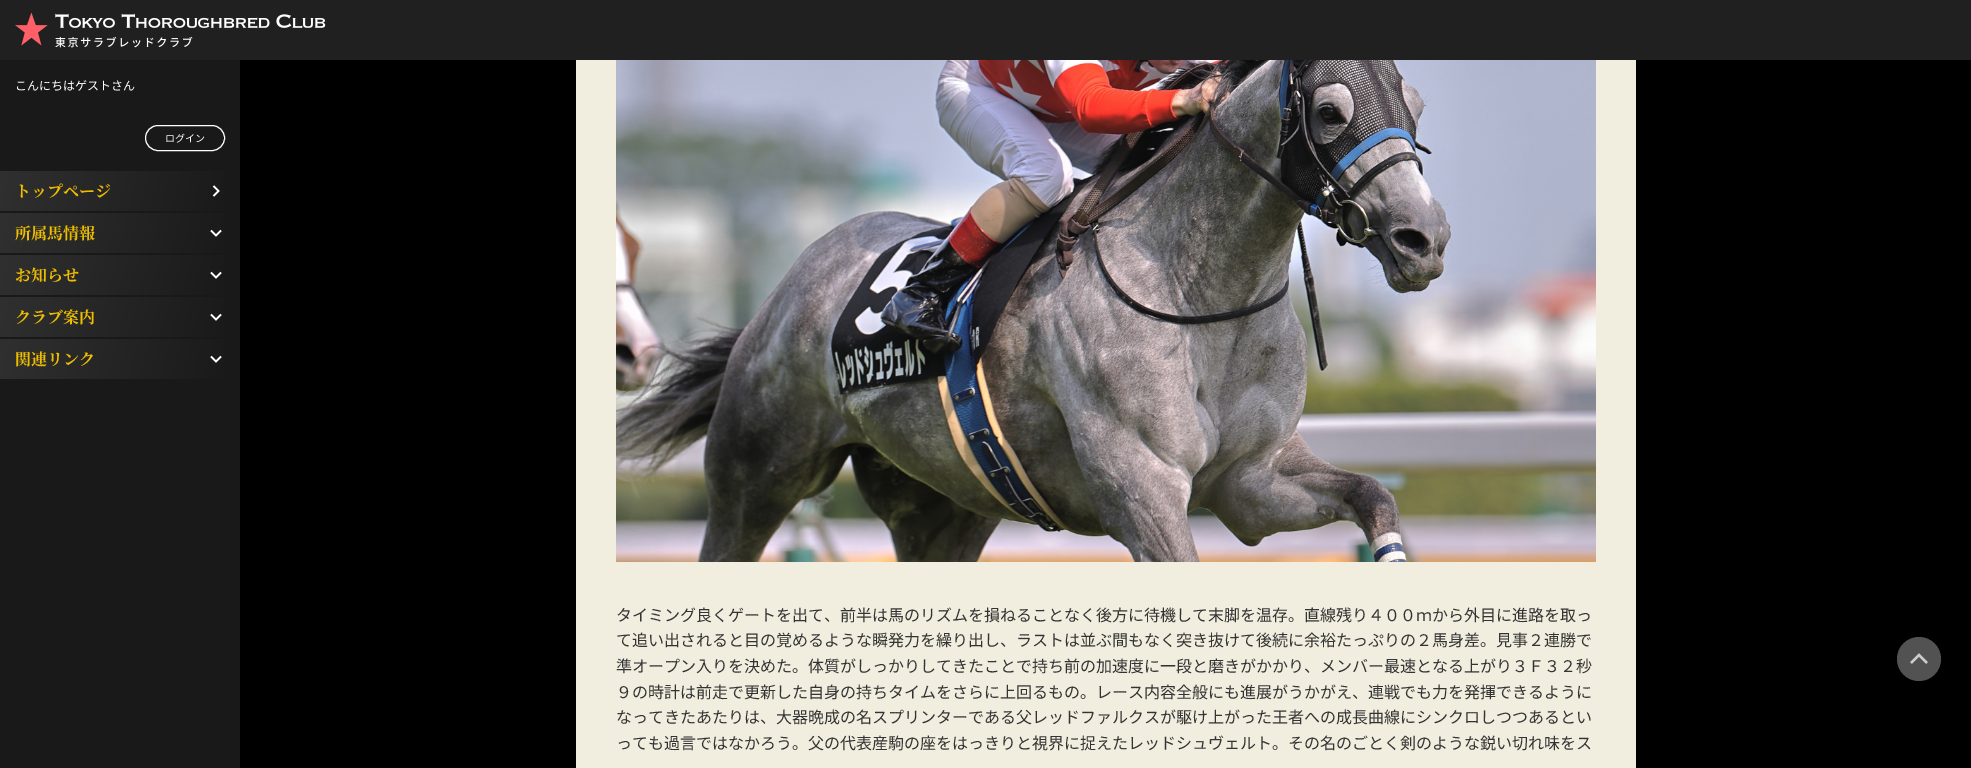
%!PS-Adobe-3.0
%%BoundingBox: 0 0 1971 768
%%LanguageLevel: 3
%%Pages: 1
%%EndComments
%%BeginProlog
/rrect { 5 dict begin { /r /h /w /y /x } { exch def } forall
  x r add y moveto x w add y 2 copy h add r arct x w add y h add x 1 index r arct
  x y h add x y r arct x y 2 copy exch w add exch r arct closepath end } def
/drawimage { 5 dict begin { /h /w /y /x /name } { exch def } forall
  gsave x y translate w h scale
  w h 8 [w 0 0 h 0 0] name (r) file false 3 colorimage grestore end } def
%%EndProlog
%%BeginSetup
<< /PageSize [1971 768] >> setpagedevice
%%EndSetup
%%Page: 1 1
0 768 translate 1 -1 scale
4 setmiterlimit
0 setgray
0 0 1971 768 rectfill
0.125 setgray
0 0 1971 60 rectfill
(images/1.raw) 15 12 311 36 drawimage
0.098 setgray
0 60 240 708 rectfill
1 setgray
145.5 125.5 79 25 12.5 rrect stroke
gsave newpath 0 171 moveto 224 171 lineto 224 211 lineto 0 211 lineto closepath clip newpath
<< /ShadingType 2 /ColorSpace /DeviceRGB /Coords [3.3 159 237 223] /Extend [true true] /Function << /FunctionType 2 /Domain [0 1] /C0 [0.188 0.188 0.188] /C1 [0.098 0.098 0.098] /N 1 >> >> shfill grestore
1.6 setlinewidth
newpath 213.5 186 moveto 218.5 191 lineto 213.5 196 lineto stroke
gsave newpath 0 213 moveto 224 213 lineto 224 253 lineto 0 253 lineto closepath clip newpath
<< /ShadingType 2 /ColorSpace /DeviceRGB /Coords [3.3 201 237 265] /Extend [true true] /Function << /FunctionType 2 /Domain [0 1] /C0 [0.188 0.188 0.188] /C1 [0.098 0.098 0.098] /N 1 >> >> shfill grestore
newpath 221 230.5 moveto 216 235.5 lineto 211 230.5 lineto stroke
gsave newpath 0 255 moveto 224 255 lineto 224 295 lineto 0 295 lineto closepath clip newpath
<< /ShadingType 2 /ColorSpace /DeviceRGB /Coords [3.3 243 237 307] /Extend [true true] /Function << /FunctionType 2 /Domain [0 1] /C0 [0.188 0.188 0.188] /C1 [0.098 0.098 0.098] /N 1 >> >> shfill grestore
newpath 221 272.5 moveto 216 277.5 lineto 211 272.5 lineto stroke
gsave newpath 0 297 moveto 224 297 lineto 224 337 lineto 0 337 lineto closepath clip newpath
<< /ShadingType 2 /ColorSpace /DeviceRGB /Coords [3.3 285 237 349] /Extend [true true] /Function << /FunctionType 2 /Domain [0 1] /C0 [0.188 0.188 0.188] /C1 [0.098 0.098 0.098] /N 1 >> >> shfill grestore
newpath 221 314.5 moveto 216 319.5 lineto 211 314.5 lineto stroke
gsave newpath 0 339 moveto 224 339 lineto 224 379 lineto 0 379 lineto closepath clip newpath
<< /ShadingType 2 /ColorSpace /DeviceRGB /Coords [3.3 327 237 391] /Extend [true true] /Function << /FunctionType 2 /Domain [0 1] /C0 [0.188 0.188 0.188] /C1 [0.098 0.098 0.098] /N 1 >> >> shfill grestore
newpath 221 356.5 moveto 216 361.5 lineto 211 356.5 lineto stroke
0.945 0.933 0.875 setrgbcolor
576 60 1060 708 rectfill
(images/2.raw) 616 60 980 502 drawimage
0.322 setgray
newpath 1919 659 22 0 360 arc closepath fill
0.8 setgray
2.2 setlinewidth
newpath 1911 663 moveto 1919 655 lineto 1927 663 lineto stroke
/NotoSansJP-Regular [12 0 0 -12 0 0] selectfont
1 setgray
15 90 moveto (こんにちはゲストさん) show
/NotoSansJP-Regular [10 0 0 -10 0 0] selectfont
165 142 moveto (ログイン) show
/NotoSerifJP-Bold [16 0 0 -16 0 0] selectfont
0.929 0.741 0 setrgbcolor
15 197 moveto (トップページ) show
15 239 moveto (所属馬情報) show
15 281 moveto (お知らせ) show
15 323 moveto (クラブ案内) show
15 365 moveto (関連リンク) show
/NotoSansJP-Regular [16 0 0 -16 0 0] selectfont
0.2 setgray
616 621 moveto (タイミング良くゲートを出て、前半は馬のリズムを損ねることなく後方に待機して末脚を温存。直線残り４００ｍから外目に進路を取っ) show
616 646 moveto (て追い出されると目の覚めるような瞬発力を繰り出し、ラストは並ぶ間もなく突き抜けて後続に余裕たっぷりの２馬身差。見事２連勝で) show
616 672 moveto (準オープン入りを決めた。体質がしっかりしてきたことで持ち前の加速度に一段と磨きがかかり、メンバー最速となる上がり３Ｆ３２秒) show
616 698 moveto (９の時計は前走で更新した自身の持ちタイムをさらに上回るもの。レース内容全般にも進展がうかがえ、連戦でも力を発揮できるように) show
616 723 moveto (なってきたあたりは、大器晩成の名スプリンターである父レッドファルクスが駆け上がった王者への成長曲線にシンクロしつつあるとい) show
616 749 moveto (っても過言ではなかろう。父の代表産駒の座をはっきりと視界に捉えたレッドシュヴェルト。その名のごとく剣のような鋭い切れ味をス) show
showpage
%%EOF
